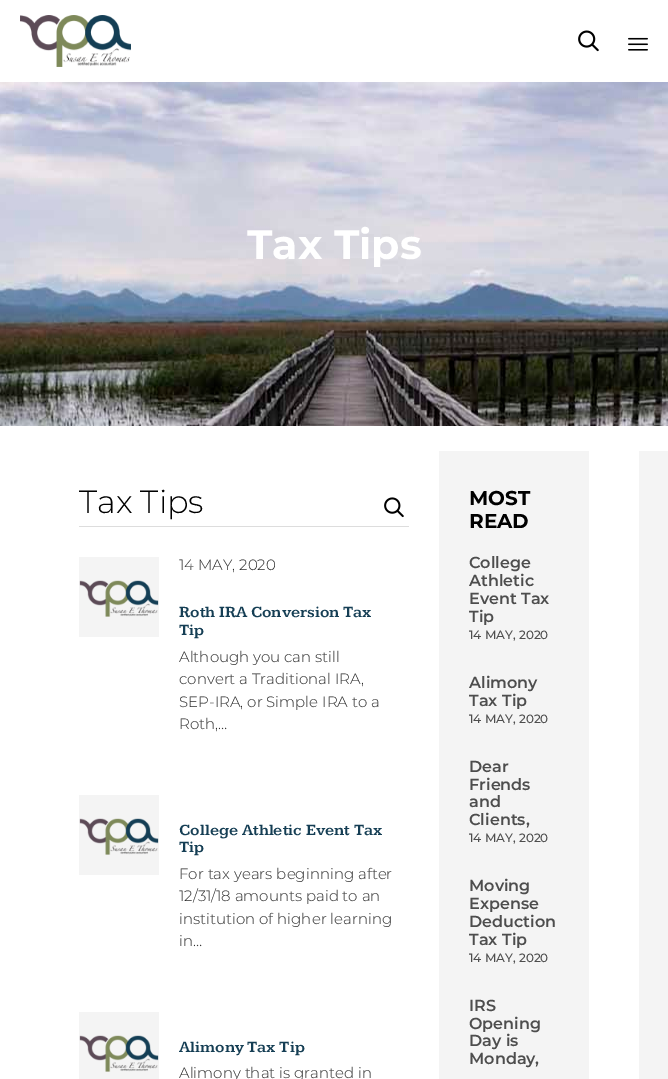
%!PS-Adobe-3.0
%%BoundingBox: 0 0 668 1079
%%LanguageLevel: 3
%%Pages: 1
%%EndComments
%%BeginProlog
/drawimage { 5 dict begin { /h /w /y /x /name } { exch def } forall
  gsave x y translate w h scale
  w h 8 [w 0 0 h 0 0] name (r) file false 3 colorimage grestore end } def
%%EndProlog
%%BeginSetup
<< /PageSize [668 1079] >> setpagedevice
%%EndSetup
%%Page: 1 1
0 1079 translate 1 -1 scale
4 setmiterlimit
1 setgray
0 0 668 1079 rectfill
(images/1.raw) 20 15 111 52 drawimage
(images/2.raw) 578 30 21 22 drawimage
(images/3.raw) 628 37 20 14 drawimage
(images/4.raw) 0 82 668 344 drawimage
0.867 setgray
79 526 330 1 rectfill
(images/5.raw) 384 497 20 21 drawimage
0.957 setgray
79 557 80 80 rectfill
(images/6.raw) 79 580 80 37 drawimage
79 795 80 80 rectfill
(images/7.raw) 79 818 80 37 drawimage
79 1012 80 67 rectfill
(images/7.raw) 79 1035 80 37 drawimage
639 451 29 628 rectfill
439 451 150 628 rectfill
/Montserrat-Bold [41 0 0 -41 0 0] selectfont
1 setgray
247 259 moveto (Tax Tips) show
/Montserrat-Light [32 0 0 -32 0 0] selectfont
0 setgray
79 513 moveto (Tax Tips) show
/Montserrat-Light [15 0 0 -15 0 0] selectfont
0.173 setgray
179 570 moveto (14 MAY, 2020) show
/Kameron-SemiBold [16 0 0 -16 0 0] selectfont
0.082 0.243 0.329 setrgbcolor
179 617 moveto (Roth IRA Conversion Tax) show
179 635 moveto (Tip) show
/Montserrat-Light [15 0 0 -15 0 0] selectfont
0.173 setgray
179 662 moveto (Although you can still) show
179 684 moveto (convert a Traditional IRA,) show
179 707 moveto (SEP-IRA, or Simple IRA to a) show
179 729 moveto (Roth,…) show
/Kameron-SemiBold [16 0 0 -16 0 0] selectfont
0.082 0.243 0.329 setrgbcolor
179 835 moveto (College Athletic Event Tax) show
179 852 moveto (Tip) show
/Montserrat-Light [15 0 0 -15 0 0] selectfont
0.173 setgray
179 879 moveto (For tax years beginning after) show
179 901 moveto (12/31/18 amounts paid to an) show
179 924 moveto (institution of higher learning) show
179 946 moveto (in…) show
/Kameron-SemiBold [16 0 0 -16 0 0] selectfont
0.082 0.243 0.329 setrgbcolor
179 1052 moveto (Alimony Tax Tip) show
/Montserrat-Light [15 0 0 -15 0 0] selectfont
0.173 setgray
179 1078 moveto (Alimony that is granted in) show
/Montserrat-Bold [20 0 0 -20 0 0] selectfont
0 setgray
469 505 moveto (MOST) show
469 528 moveto (READ) show
/Montserrat-SemiBold [16 0 0 -16 0 0] selectfont
0.302 setgray
469 568 moveto (College) show
469 586 moveto (Athletic) show
469 604 moveto (Event Tax) show
469 622 moveto (Tip) show
/Montserrat-Medium [12 0 0 -12 0 0] selectfont
469 639 moveto (14 MAY, 2020) show
/Montserrat-SemiBold [16 0 0 -16 0 0] selectfont
469 688 moveto (Alimony) show
469 706 moveto (Tax Tip) show
/Montserrat-Medium [12 0 0 -12 0 0] selectfont
469 723 moveto (14 MAY, 2020) show
/Montserrat-SemiBold [16 0 0 -16 0 0] selectfont
469 772 moveto (Dear) show
469 790 moveto (Friends) show
469 807 moveto (and) show
469 825 moveto (Clients,) show
/Montserrat-Medium [12 0 0 -12 0 0] selectfont
469 842 moveto (14 MAY, 2020) show
/Montserrat-SemiBold [16 0 0 -16 0 0] selectfont
469 891 moveto (Moving) show
469 909 moveto (Expense) show
469 927 moveto (Deduction) show
469 945 moveto (Tax Tip) show
/Montserrat-Medium [12 0 0 -12 0 0] selectfont
469 962 moveto (14 MAY, 2020) show
/Montserrat-SemiBold [16 0 0 -16 0 0] selectfont
469 1011 moveto (IRS) show
469 1029 moveto (Opening) show
469 1046 moveto (Day is) show
469 1064 moveto (Monday,) show
showpage
%%EOF
